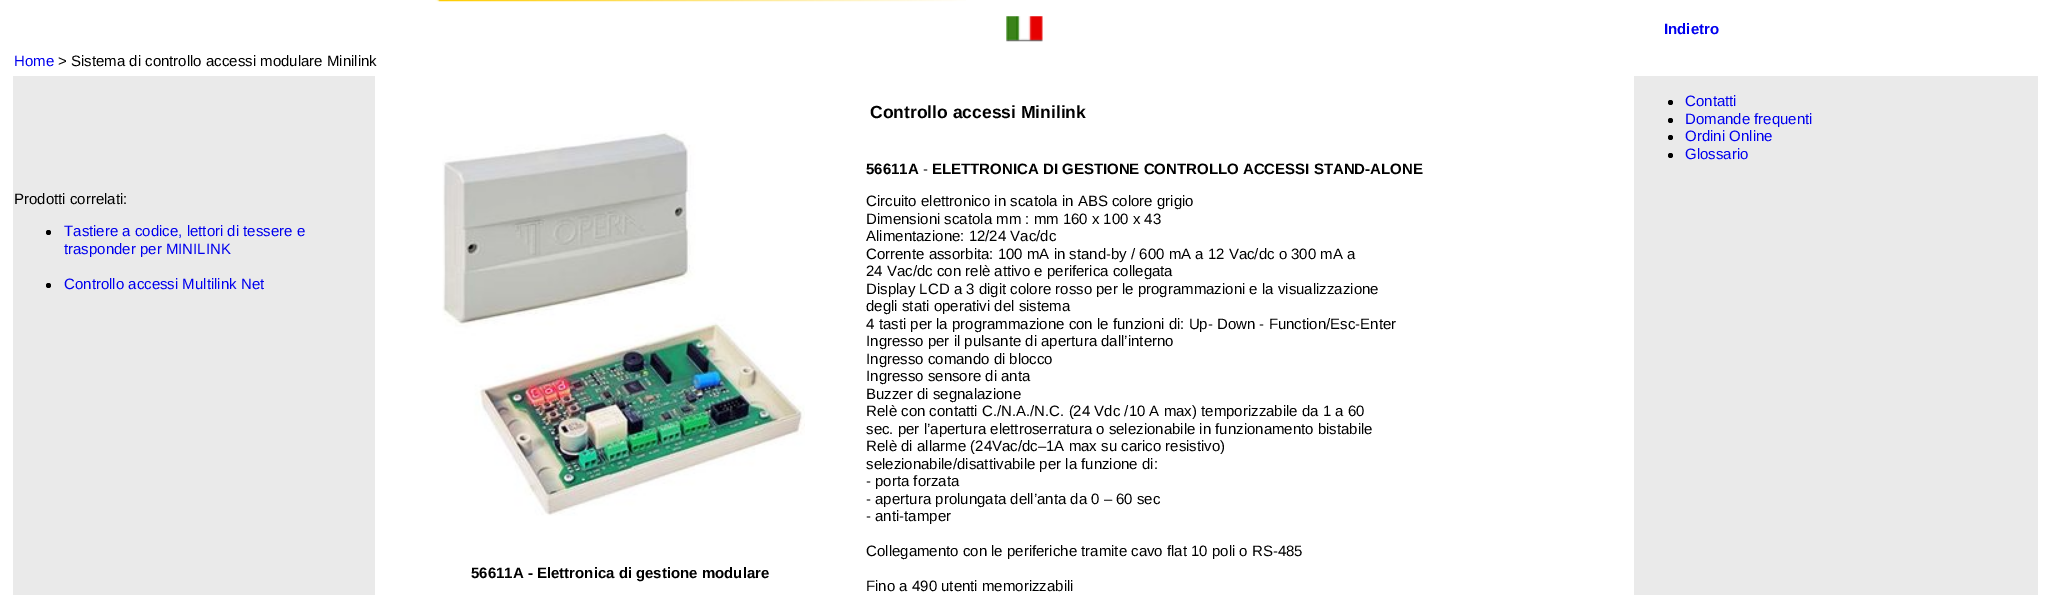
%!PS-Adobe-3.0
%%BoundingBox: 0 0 2069 595
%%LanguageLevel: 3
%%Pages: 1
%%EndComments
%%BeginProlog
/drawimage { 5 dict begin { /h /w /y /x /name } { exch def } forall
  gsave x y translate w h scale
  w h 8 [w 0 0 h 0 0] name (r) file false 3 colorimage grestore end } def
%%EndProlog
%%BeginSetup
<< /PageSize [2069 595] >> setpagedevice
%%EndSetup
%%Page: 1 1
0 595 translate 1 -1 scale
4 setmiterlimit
1 setgray
0 0 2069 595 rectfill
(images/1.raw) 435 0 531 2 drawimage
(images/2.raw) 1006 16 37 26 drawimage
0.918 setgray
13 76 362 519 rectfill
0 setgray
newpath 48.5 232.5 2.5 0 360 arc closepath fill
newpath 48.5 285.5 2.5 0 360 arc closepath fill
0.918 setgray
1634 76 404 519 rectfill
0 setgray
newpath 1670.5 102.5 2.5 0 360 arc closepath fill
newpath 1670.5 120.5 2.5 0 360 arc closepath fill
newpath 1670.5 137.5 2.5 0 360 arc closepath fill
newpath 1670.5 155.5 2.5 0 360 arc closepath fill
(images/3.raw) 442 130 363 386 drawimage
/LiberationSans-Bold [15 0 0 -15 0 0] selectfont
0 0 0.933 setrgbcolor
1664 34 moveto (Indietro) show
/LiberationSans-Regular [15 0 0 -15 0 0] selectfont
14 66 moveto (Home) show
0 setgray
58 66 moveto (> Sistema di controllo accessi modulare Minilink) show
14 204 moveto (Prodotti correlati:) show
0 0 0.933 setrgbcolor
64 236 moveto (Tastiere a codice, lettori di tessere e) show
64 254 moveto (trasponder per MINILINK) show
64 289 moveto (Controllo accessi Multilink Net) show
/LiberationSans-Bold [17.5 0 0 -17.5 0 0] selectfont
0 setgray
870 118 moveto (Controllo accessi Minilink) show
/LiberationSans-Bold [15 0 0 -15 0 0] selectfont
866 174 moveto (56611A) show
/LiberationSans-Regular [15 0 0 -15 0 0] selectfont
923 174 moveto (-) show
/LiberationSans-Bold [15 0 0 -15 0 0] selectfont
932 174 moveto (ELETTRONICA DI GESTIONE CONTROLLO ACCESSI STAND-ALONE) show
/LiberationSans-Regular [15 0 0 -15 0 0] selectfont
866 206 moveto (Circuito elettronico in scatola in ABS colore grigio) show
866 224 moveto (Dimensioni scatola mm : mm 160 x 100 x 43) show
866 241 moveto (Alimentazione: 12/24 Vac/dc) show
866 259 moveto (Corrente assorbita: 100 mA in stand-by / 600 mA a 12 Vac/dc o 300 mA a) show
866 276 moveto (24 Vac/dc con relè attivo e periferica collegata) show
866 294 moveto (Display LCD a 3 digit colore rosso per le programmazioni e la visualizzazione) show
866 311 moveto (degli stati operativi del sistema) show
866 329 moveto (4 tasti per la programmazione con le funzioni di: Up- Down - Function/Esc-Enter) show
866 346 moveto (Ingresso per il pulsante di apertura dall’interno) show
866 364 moveto (Ingresso comando di blocco) show
866 381 moveto (Ingresso sensore di anta) show
866 399 moveto (Buzzer di segnalazione) show
866 416 moveto (Relè con contatti C./N.A./N.C. \(24 Vdc /10 A max\) temporizzabile da 1 a 60) show
866 434 moveto (sec. per l’apertura elettroserratura o selezionabile in funzionamento bistabile) show
866 451 moveto (Relè di allarme \(24Vac/dc–1A max su carico resistivo\)) show
866 469 moveto (selezionabile/disattivabile per la funzione di:) show
866 486 moveto (- porta forzata) show
866 504 moveto (- apertura prolungata dell’anta da 0 – 60 sec) show
866 521 moveto (- anti-tamper) show
866 556 moveto (Collegamento con le periferiche tramite cavo flat 10 poli o RS-485) show
866 591 moveto (Fino a 490 utenti memorizzabili) show
0 0 0.933 setrgbcolor
1685 106 moveto (Contatti) show
1685 124 moveto (Domande frequenti) show
1685 141 moveto (Ordini Online) show
1685 159 moveto (Glossario) show
/LiberationSans-Bold [15 0 0 -15 0 0] selectfont
0 setgray
471 578 moveto (56611A - Elettronica di gestione modulare) show
showpage
%%EOF
